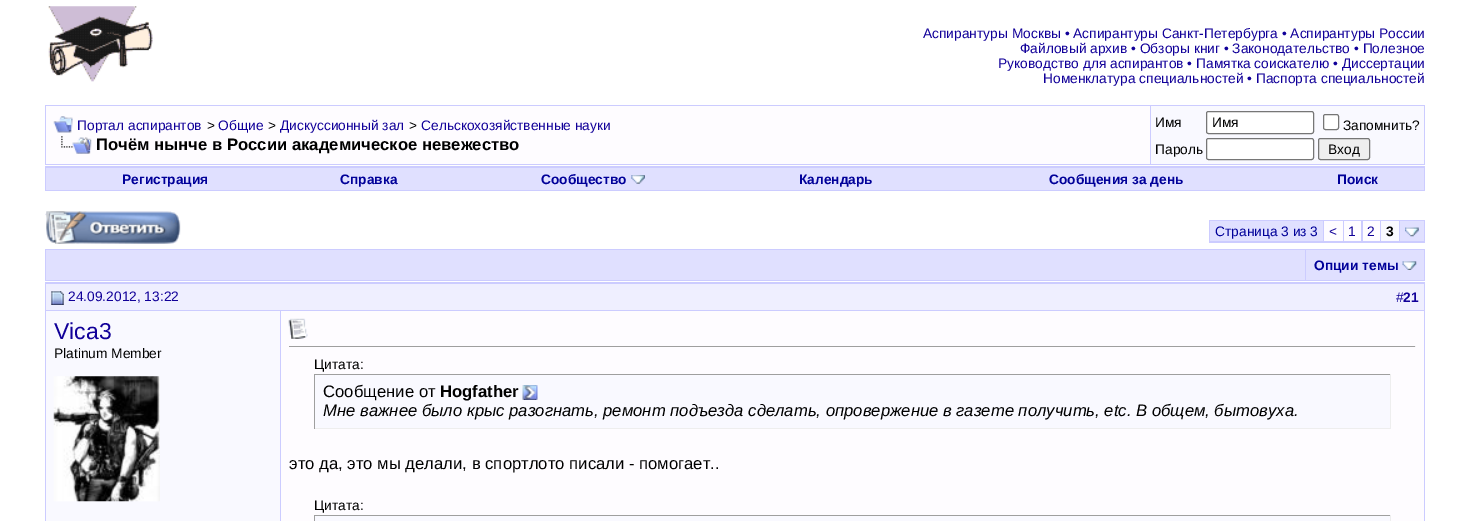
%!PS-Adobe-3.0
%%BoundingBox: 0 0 1469 521
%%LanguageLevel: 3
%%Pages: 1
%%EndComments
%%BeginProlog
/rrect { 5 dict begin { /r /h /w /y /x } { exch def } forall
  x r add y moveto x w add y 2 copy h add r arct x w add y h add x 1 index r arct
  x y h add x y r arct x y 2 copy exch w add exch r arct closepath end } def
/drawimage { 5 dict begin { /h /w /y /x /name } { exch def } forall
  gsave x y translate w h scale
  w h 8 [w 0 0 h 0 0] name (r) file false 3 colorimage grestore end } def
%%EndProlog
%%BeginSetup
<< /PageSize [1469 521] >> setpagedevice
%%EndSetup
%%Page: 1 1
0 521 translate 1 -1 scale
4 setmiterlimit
1 setgray
0 0 1469 521 rectfill
(images/1.raw) 48 6 105 76 drawimage
0.8 0.8 1 setrgbcolor
45 105 1380 60 rectfill
0.996 0.988 1 setrgbcolor
46 106 1104 58 rectfill
(images/2.raw) 53 116 20 17 drawimage
(images/3.raw) 61 136 31 18 drawimage
0.976 0.976 1 setrgbcolor
1151 106 273 58 rectfill
1 setgray
1206.5 111.5 107 22 2 rrect gsave fill grestore
0.463 setgray
stroke
1 setgray
1323.5 114.5 15 15 2 rrect gsave fill grestore
0.463 setgray
stroke
1 setgray
1206.5 138.5 107 21 2 rrect gsave fill grestore
0.463 setgray
stroke
0.937 setgray
1318.5 138.5 51 21 2 rrect gsave fill grestore
0.463 setgray
stroke
0.8 0.8 1 setrgbcolor
45 166 1380 25 rectfill
0.878 0.878 1 setrgbcolor
46 168 1378 22 rectfill
(images/4.raw) 631 175 14 9 drawimage
(images/5.raw) 45 211 136 33 drawimage
0.8 0.8 1 setrgbcolor
1209 220 216 23 rectfill
0.878 0.878 1 setrgbcolor
1210 221 113 20 rectfill
0.996 0.988 1 setrgbcolor
1324 221 19 20 rectfill
1344 221 17 20 rectfill
1363 221 17 20 rectfill
0.976 0.976 1 setrgbcolor
1381 221 18 20 rectfill
0.878 0.878 1 setrgbcolor
1400 221 24 20 rectfill
(images/6.raw) 1405 227 14 10 drawimage
0.8 0.8 1 setrgbcolor
45 249 1380 32 rectfill
0.878 0.878 1 setrgbcolor
46 250 1259 30 rectfill
1306 250 118 30 rectfill
(images/7.raw) 1402 261 15 9 drawimage
0.8 0.8 1 setrgbcolor
45 282 1380 1 rectfill
0.937 0.937 1 setrgbcolor
46 284 1378 26 rectfill
0.8 0.8 1 setrgbcolor
45 283 1380 1 rectfill
45 310 236 1 rectfill
45 283 1 238 rectfill
(images/8.raw) 51 291 13 14 drawimage
1424 283 1 238 rectfill
281 310 1144 1 rectfill
0.976 0.976 1 setrgbcolor
46 311 234 210 rectfill
0.8 0.8 1 setrgbcolor
280 311 1 210 rectfill
(images/9.raw) 53 376 107 126 drawimage
0.996 0.988 1 setrgbcolor
281 311 1143 210 rectfill
(images/10.raw) 288 318 20 21 drawimage
0.624 setgray
289 346 1127 1 rectfill
0.933 setgray
1415 346 1 1 rectfill
0.976 0.976 1 setrgbcolor
315 375 1075 53 rectfill
0.624 setgray
314 374 1077 1 rectfill
0.933 setgray
1390 374 1 55 rectfill
314 428 1077 1 rectfill
0.624 setgray
314 374 1 55 rectfill
(images/11.raw) 522 385 16 15 drawimage
0.976 0.976 1 setrgbcolor
314 516 1077 5 rectfill
0.624 setgray
314 515 1077 1 rectfill
0.933 setgray
1390 515 1 6 rectfill
0.624 setgray
314 515 1 6 rectfill
/LiberationSans-Regular [13.75 0 0 -13.75 0 0] selectfont
0.067 0 0.6 setrgbcolor
923 38 moveto (Аспирантуры Москвы • Аспирантуры Санкт-Петербурга • Аспирантуры России) show
1020 53 moveto (Файловый архив • Обзоры книг • Законодательство • Полезное) show
998 68 moveto (Руководство для аспирантов • Памятка соискателю • Диссертации) show
1043 83 moveto (Номенклатура специальностей • Паспорта специальностей) show
77 130 moveto (Портал аспирантов) show
0 setgray
207 130 moveto (>) show
0.067 0 0.6 setrgbcolor
218 130 moveto (Общие) show
0 setgray
268 130 moveto (>) show
0.067 0 0.6 setrgbcolor
280 130 moveto (Дискуссионный зал) show
0 setgray
409 130 moveto (>) show
0.067 0 0.6 setrgbcolor
421 130 moveto (Сельскохозяйственные науки) show
/LiberationSans-Bold [16.67 0 0 -16.67 0 0] selectfont
0 setgray
96 150 moveto (Почём нынче в России академическое невежество) show
/LiberationSans-Regular [13.75 0 0 -13.75 0 0] selectfont
1155 127 moveto (Имя) show
1212 127 moveto (Имя) show
1343 130 moveto (Запомнить?) show
1155 154 moveto (Пароль) show
1328 154 moveto (Вход) show
/LiberationSans-Bold [13.75 0 0 -13.75 0 0] selectfont
0 0 0.6 setrgbcolor
122 184 moveto (Регистрация) show
340 184 moveto (Справка) show
541 184 moveto (Сообщество) show
799 184 moveto (Календарь) show
1049 184 moveto (Сообщения за день) show
1337 184 moveto (Поиск) show
/LiberationSans-Regular [13.75 0 0 -13.75 0 0] selectfont
1215 236 moveto (Страница 3 из 3) show
0.067 0 0.6 setrgbcolor
1329 236 moveto (<) show
1348 236 moveto (1) show
1367 236 moveto (2) show
/LiberationSans-Bold [13.75 0 0 -13.75 0 0] selectfont
0 setgray
1386 236 moveto (3) show
0 0 0.6 setrgbcolor
1314 270 moveto (Опции темы) show
/LiberationSans-Regular [13.75 0 0 -13.75 0 0] selectfont
0.067 0 0.6 setrgbcolor
68 301 moveto (24.09.2012, 13:22) show
1396 302 moveto (#) show
/LiberationSans-Bold [13.75 0 0 -13.75 0 0] selectfont
1403 302 moveto (21) show
/LiberationSans-Regular [23 0 0 -23 0 0] selectfont
54 339 moveto (Vica3) show
/LiberationSans-Regular [13.75 0 0 -13.75 0 0] selectfont
0 setgray
54 358 moveto (Platinum Member) show
314 369 moveto (Цитата:) show
/LiberationSans-Regular [16.67 0 0 -16.67 0 0] selectfont
323 397 moveto (Сообщение от) show
/LiberationSans-Bold [16.67 0 0 -16.67 0 0] selectfont
440 397 moveto (Hogfather) show
/LiberationSans-Italic [16.67 0 0 -16.67 0 0] selectfont
323 416 moveto (Мне важнее было крыс разогнать, ремонт подъезда сделать, опровержение в газете получить, etc. В общем, бытовуха.) show
/LiberationSans-Regular [16.67 0 0 -16.67 0 0] selectfont
289 469 moveto (это да, это мы делали, в спортлото писали - помогает..) show
/LiberationSans-Regular [13.75 0 0 -13.75 0 0] selectfont
314 510 moveto (Цитата:) show
showpage
%%EOF
